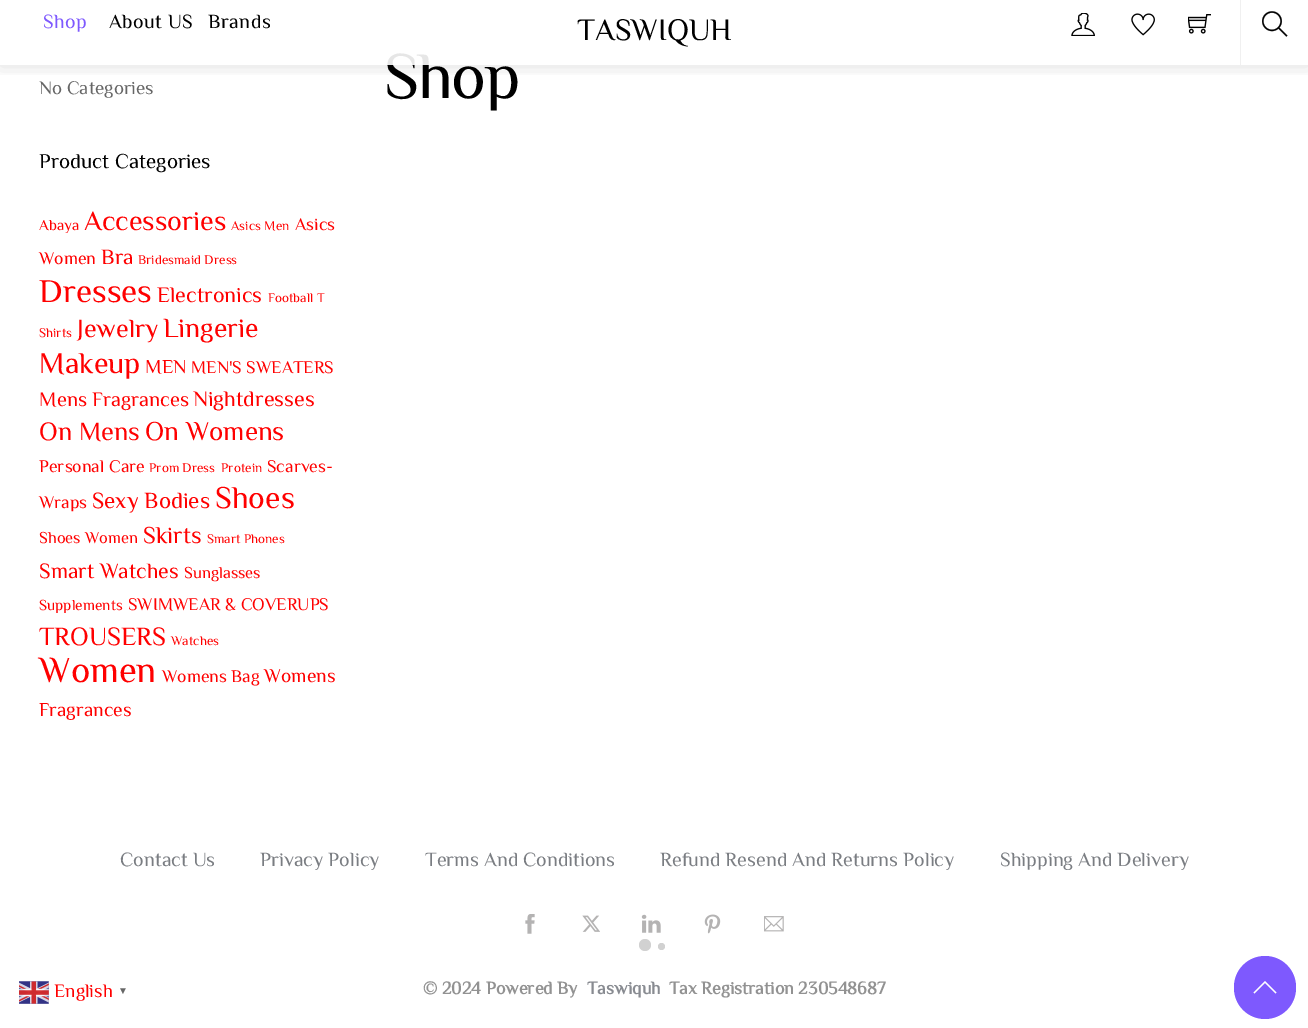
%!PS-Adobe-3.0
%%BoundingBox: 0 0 1308 1028
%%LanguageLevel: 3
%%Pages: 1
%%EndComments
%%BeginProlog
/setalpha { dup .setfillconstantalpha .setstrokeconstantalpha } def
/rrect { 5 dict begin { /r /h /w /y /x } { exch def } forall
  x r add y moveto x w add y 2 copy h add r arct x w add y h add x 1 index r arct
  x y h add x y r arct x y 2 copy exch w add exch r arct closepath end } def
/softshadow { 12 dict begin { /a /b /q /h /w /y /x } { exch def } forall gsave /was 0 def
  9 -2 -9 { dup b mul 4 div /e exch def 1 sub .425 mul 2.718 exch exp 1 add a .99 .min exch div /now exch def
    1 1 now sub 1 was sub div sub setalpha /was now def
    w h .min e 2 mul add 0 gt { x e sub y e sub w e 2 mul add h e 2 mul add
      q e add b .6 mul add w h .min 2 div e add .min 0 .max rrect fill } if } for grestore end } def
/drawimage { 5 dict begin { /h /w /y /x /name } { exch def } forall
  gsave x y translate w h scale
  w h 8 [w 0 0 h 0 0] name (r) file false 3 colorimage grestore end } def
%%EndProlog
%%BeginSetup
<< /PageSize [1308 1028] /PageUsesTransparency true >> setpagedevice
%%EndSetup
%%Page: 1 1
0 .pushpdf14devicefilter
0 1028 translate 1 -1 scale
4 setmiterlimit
1 setgray
0 0 1308 1028 rectfill
gsave
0 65 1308 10 rectclip
0 setgray
0 1 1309 65 0 9.5 0.12 softshadow
grestore
(images/1.raw) 1071 13 24 23 drawimage
(images/2.raw) 1131 13 24 23 drawimage
(images/3.raw) 1188 14 23 20 drawimage
0.941 setgray
1240 0 1 65 rectfill
(images/4.raw) 1262 11 26 26 drawimage
(images/5.raw) 525 914 10 20 drawimage
(images/6.raw) 582 915 18 17 drawimage
(images/7.raw) 641 914 20 19 drawimage
(images/8.raw) 704 914 17 20 drawimage
(images/9.raw) 764 916 20 16 drawimage
0.82 setgray
newpath 645 945 6 0 360 arc closepath fill
newpath 661.5 946.5 3.5 0 360 arc closepath fill
0.494 0.349 0.996 setrgbcolor
1234 956 62 63 31 rrect fill
1 setgray
newpath 1276.5 992.5 moveto 1265 981 lineto 1253.5 992.5 lineto 1254.5 993.5 lineto 1265 983 lineto 1275.5 993.5 lineto closepath fill
(images/10.raw) 19 981 30 23 drawimage
/ElMessiri-Regular [20 0 0 -20 0 0] selectfont
0.494 0.349 0.996 setrgbcolor
43 28 moveto 0.5 0 (Shop) ashow
0 setgray
109 28 moveto 0.5 0 (About US) ashow
208 28 moveto 0.5 0 (Brands) ashow
/ElMessiri-Regular [31 0 0 -31 0 0] selectfont
577 40 moveto (TASWIQUH) show
/ElMessiri-Regular [19 0 0 -19 0 0] selectfont
0.4 setgray
39 94 moveto (No Categories) show
/ElMessiri-Regular [21 0 0 -21 0 0] selectfont
0 setgray
39 168 moveto (Product Categories) show
/ElMessiri-Regular [15.25 0 0 -15.25 0 0] selectfont
1 0 0 setrgbcolor
39 230 moveto (Abaya) show
/ElMessiri-Regular [28 0 0 -28 0 0] selectfont
84 230 moveto (Accessories) show
/ElMessiri-Regular [13.25 0 0 -13.25 0 0] selectfont
231 230 moveto (Asics Men) show
/ElMessiri-Regular [17.75 0 0 -17.75 0 0] selectfont
295 230 moveto (Asics) show
39 264 moveto (Women) show
/ElMessiri-Regular [21.75 0 0 -21.75 0 0] selectfont
101 264 moveto (Bra) show
/ElMessiri-Regular [13.25 0 0 -13.25 0 0] selectfont
138 264 moveto (Bridesmaid Dress) show
/ElMessiri-Regular [33 0 0 -33 0 0] selectfont
39 302 moveto (Dresses) show
/ElMessiri-Regular [22 0 0 -22 0 0] selectfont
157 302 moveto (Electronics) show
/ElMessiri-Regular [13.25 0 0 -13.25 0 0] selectfont
268 302 moveto (Football T) show
39 337 moveto (Shirts) show
/ElMessiri-Regular [26 0 0 -26 0 0] selectfont
77 337 moveto (Jewelry) show
/ElMessiri-Regular [27.5 0 0 -27.5 0 0] selectfont
163 337 moveto (Lingerie) show
/ElMessiri-Regular [30 0 0 -30 0 0] selectfont
39 373 moveto (Makeup) show
/ElMessiri-Regular [19.5 0 0 -19.5 0 0] selectfont
145 373 moveto (MEN) show
/ElMessiri-Regular [17.75 0 0 -17.75 0 0] selectfont
191 373 moveto (MEN'S SWEATERS) show
/ElMessiri-Regular [20.5 0 0 -20.5 0 0] selectfont
39 406 moveto (Mens Fragrances) show
/ElMessiri-Regular [22 0 0 -22 0 0] selectfont
193 406 moveto (Nightdresses) show
/ElMessiri-Regular [26.25 0 0 -26.25 0 0] selectfont
39 440 moveto (On Mens) show
/ElMessiri-Regular [27 0 0 -27 0 0] selectfont
145 440 moveto (On Womens) show
/ElMessiri-Regular [17.75 0 0 -17.75 0 0] selectfont
39 472 moveto (Personal Care) show
/ElMessiri-Regular [13.25 0 0 -13.25 0 0] selectfont
149 472 moveto (Prom Dress) show
221 472 moveto (Protein) show
/ElMessiri-Regular [17.75 0 0 -17.75 0 0] selectfont
267 472 moveto (Scarves-) show
39 508 moveto (Wraps) show
/ElMessiri-Regular [23 0 0 -23 0 0] selectfont
92 508 moveto (Sexy Bodies) show
/ElMessiri-Regular [31.5 0 0 -31.5 0 0] selectfont
215 508 moveto (Shoes) show
/ElMessiri-Regular [16.5 0 0 -16.5 0 0] selectfont
39 543 moveto (Shoes Women) show
/ElMessiri-Regular [24 0 0 -24 0 0] selectfont
143 543 moveto (Skirts) show
/ElMessiri-Regular [13.25 0 0 -13.25 0 0] selectfont
207 543 moveto (Smart Phones) show
/ElMessiri-Regular [21.75 0 0 -21.75 0 0] selectfont
39 578 moveto (Smart Watches) show
/ElMessiri-Regular [16.5 0 0 -16.5 0 0] selectfont
184 578 moveto (Sunglasses) show
/ElMessiri-Regular [15.25 0 0 -15.25 0 0] selectfont
39 610 moveto (Supplements) show
/ElMessiri-Regular [17.75 0 0 -17.75 0 0] selectfont
128 610 moveto (SWIMWEAR & COVERUPS) show
/ElMessiri-Regular [26.25 0 0 -26.25 0 0] selectfont
39 645 moveto (TROUSERS) show
/ElMessiri-Regular [13.25 0 0 -13.25 0 0] selectfont
171 645 moveto (Watches) show
/ElMessiri-Regular [36.5 0 0 -36.5 0 0] selectfont
39 682 moveto (Women) show
/ElMessiri-Regular [17.75 0 0 -17.75 0 0] selectfont
162 682 moveto (Womens Bag) show
/ElMessiri-Regular [19.5 0 0 -19.5 0 0] selectfont
264 682 moveto (Womens) show
39 716 moveto (Fragrances) show
/ElMessiri-Regular [66 0 0 -66 0 0] selectfont
0 setgray
384 98 moveto -1.5 0 (Shop) ashow
0.9 setalpha
1 setgray
387 53 42 12 rectfill
/ElMessiri-Regular [20 0 0 -20 0 0] selectfont
1 setalpha
0.478 0.49 0.51 setrgbcolor
120 866 moveto (Contact Us) show
260 866 moveto (Privacy Policy) show
425 866 moveto (Terms And Conditions) show
660 866 moveto (Refund Resend And Returns Policy) show
1000 866 moveto (Shipping And Delivery) show
/ElMessiri-Bold [18 0 0 -18 0 0] selectfont
0.573 setgray
423 994 moveto (© 2024 Powered By) show
0.533 0.545 0.569 setrgbcolor
587 994 moveto (Taswiquh) show
0.573 setgray
669 994 moveto (Tax Registration 230548687) show
/ElMessiri-Regular [19 0 0 -19 0 0] selectfont
1 0 0 setrgbcolor
54 997 moveto (English) show
/LiberationSerif-Bold [10 0 0 -10 0 0] selectfont
0.4 setgray
118 994 moveto (▼) show
.poppdf14devicefilter showpage
%%EOF
